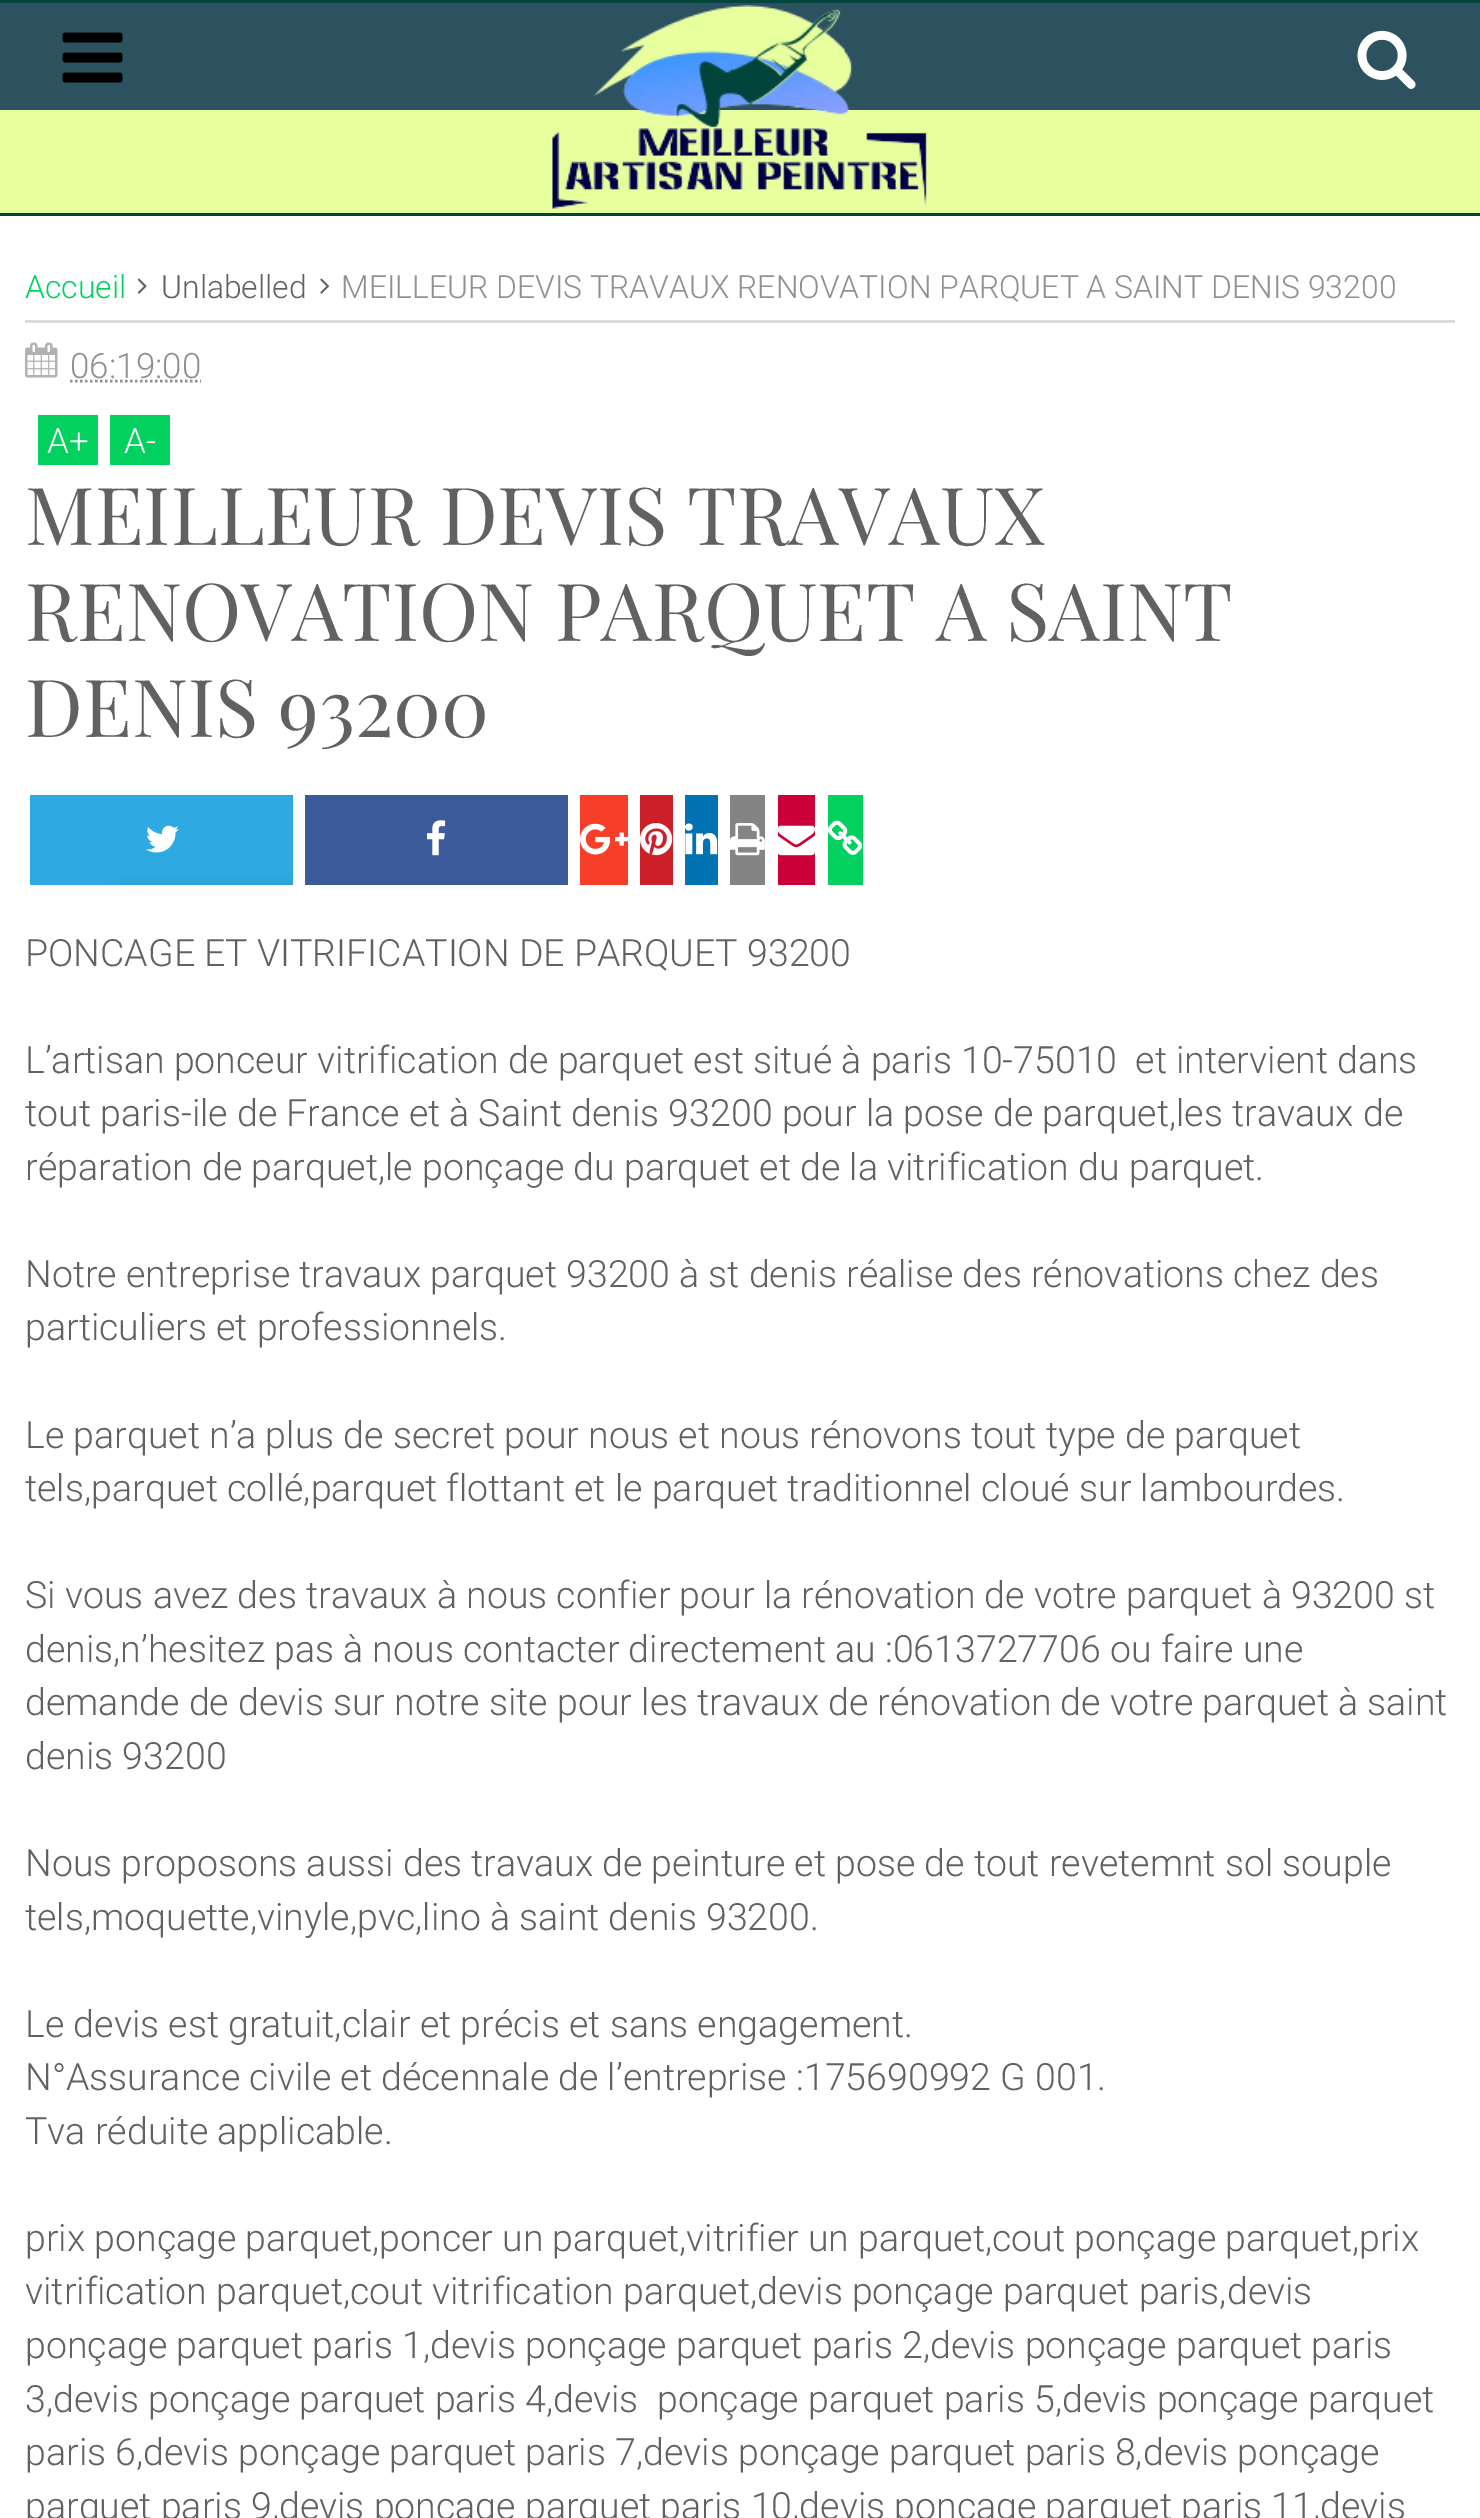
%!PS-Adobe-3.0
%%BoundingBox: 0 0 1480 2518
%%LanguageLevel: 3
%%Pages: 1
%%EndComments
%%BeginProlog
/setalpha { dup .setfillconstantalpha .setstrokeconstantalpha } def
/rrect { 5 dict begin { /r /h /w /y /x } { exch def } forall
  x r add y moveto x w add y 2 copy h add r arct x w add y h add x 1 index r arct
  x y h add x y r arct x y 2 copy exch w add exch r arct closepath end } def
/softshadow { 12 dict begin { /a /b /q /h /w /y /x } { exch def } forall gsave /was 0 def
  9 -2 -9 { dup b mul 4 div /e exch def 1 sub .425 mul 2.718 exch exp 1 add a .99 .min exch div /now exch def
    1 1 now sub 1 was sub div sub setalpha /was now def
    w h .min e 2 mul add 0 gt { x e sub y e sub w e 2 mul add h e 2 mul add
      q e add b .6 mul add w h .min 2 div e add .min 0 .max rrect fill } if } for grestore end } def
/drawimage { 5 dict begin { /h /w /y /x /name } { exch def } forall
  gsave x y translate w h scale
  w h 8 [w 0 0 h 0 0] name (r) file false 3 colorimage grestore end } def
%%EndProlog
%%BeginSetup
<< /PageSize [1480 2518] /PageUsesTransparency true >> setpagedevice
%%EndSetup
%%Page: 1 1
0 .pushpdf14devicefilter
0 2518 translate 1 -1 scale
4 setmiterlimit
1 setgray
0 0 1480 2518 rectfill
0.91 1 0.616 setrgbcolor
0 110 1480 103 rectfill
0 0.267 0.235 setrgbcolor
0 0 1480 3 rectfill
0 213 1480 3 rectfill
0.173 0.322 0.373 setrgbcolor
0 3 1480 107 rectfill
(images/1.raw) 552 5 375 204 drawimage
(images/2.raw) 62 32 61 51 drawimage
(images/3.raw) 1357 30 59 59 drawimage
(images/4.raw) 137 278 10 16 drawimage
(images/5.raw) 320 278 10 16 drawimage
0.859 setgray
25 320 1430 3 rectfill
(images/6.raw) 25 342 33 36 drawimage
0.565 setgray
2.5 setlinewidth
[2.5 2.5] 0 setdash
newpath 70 381 moveto 201 381 lineto stroke
0.008 0.82 0.376 setrgbcolor
38 415 60 50 rectfill
110 415 60 50 rectfill
0.176 0.667 0.882 setrgbcolor
30 795 263 90 rectfill
(images/7.raw) 146 825 33 28 drawimage
gsave
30 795 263 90 rectclip
0 setgray
120 888 173 90 0 5 0.2 softshadow
grestore
0.235 0.357 0.608 setrgbcolor
305 795 263 90 rectfill
(images/8.raw) 427 820 19 36 drawimage
0.965 0.243 0.157 setrgbcolor
580 795 48 90 rectfill
(images/9.raw) 580 823 48 32 drawimage
0.796 0.125 0.153 setrgbcolor
640 795 33 90 rectfill
(images/10.raw) 640 823 33 33 drawimage
0.004 0.451 0.698 setrgbcolor
685 795 33 90 rectfill
(images/11.raw) 685 823 33 32 drawimage
0.518 setgray
730 795 35 90 rectfill
(images/12.raw) 730 823 35 33 drawimage
0.8 0 0.22 setrgbcolor
778 795 37 90 rectfill
(images/13.raw) 778 825 37 31 drawimage
0.008 0.82 0.376 setrgbcolor
828 795 35 90 rectfill
gsave
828 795 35 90 rectclip
newpath 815 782 moveto 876 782 lineto 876 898 lineto 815 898 lineto closepath 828 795 moveto 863 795 lineto 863 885 lineto 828 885 lineto closepath eoclip newpath
0 setgray
828 795 35 90 0 4 0.2 softshadow
grestore
(images/14.raw) 828 820 34 35 drawimage
/Roboto-Light [31.9 0 0 -31.9 0 0] selectfont
25 298 moveto (Accueil) show
0.38 setgray
161 298 moveto (Unlabelled) show
0.565 setgray
341 298 moveto (MEILLEUR DEVIS TRAVAUX RENOVATION PARQUET A SAINT DENIS 93200) show
/Roboto-Light [35 0 0 -35 0 0] selectfont
70 378 moveto (06:19:00) show
1 setgray
47 453 moveto (A+) show
124 453 moveto (A-) show
/PlayfairDisplay-Regular [80 0 0 -80 0 0] selectfont
0.38 setgray
25 545 moveto (MEILLEUR DEVIS TRAVAUX) show
25 641 moveto (RENOVATION PARQUET A SAINT) show
25 737 moveto (DENIS 93200) show
/Roboto-Light [37.5 0 0 -37.5 0 0] selectfont
25 966 moveto (PONCAGE ET VITRIFICATION DE PARQUET 93200) show
25 1073 moveto (L’artisan ponceur vitrification de parquet est situé à paris 10-75010  et intervient dans) show
25 1126 moveto (tout paris-ile de France et à Saint denis 93200 pour la pose de parquet,les travaux de) show
25 1180 moveto (réparation de parquet,le ponçage du parquet et de la vitrification du parquet.) show
25 1287 moveto (Notre entreprise travaux parquet 93200 à st denis réalise des rénovations chez des) show
25 1340 moveto (particuliers et professionnels.) show
25 1448 moveto (Le parquet n’a plus de secret pour nous et nous rénovons tout type de parquet) show
25 1501 moveto (tels,parquet collé,parquet flottant et le parquet traditionnel cloué sur lambourdes.) show
25 1608 moveto (Si vous avez des travaux à nous confier pour la rénovation de votre parquet à 93200 st) show
25 1662 moveto (denis,n’hesitez pas à nous contacter directement au :0613727706 ou faire une) show
25 1715 moveto (demande de devis sur notre site pour les travaux de rénovation de votre parquet à saint) show
25 1769 moveto (denis 93200) show
25 1876 moveto (Nous proposons aussi des travaux de peinture et pose de tout revetemnt sol souple) show
25 1930 moveto (tels,moquette,vinyle,pvc,lino à saint denis 93200.) show
25 2037 moveto (Le devis est gratuit,clair et précis et sans engagement.) show
25 2090 moveto (N°Assurance civile et décennale de l’entreprise :175690992 G 001.) show
25 2144 moveto (Tva réduite applicable.) show
25 2251 moveto (prix ponçage parquet,poncer un parquet,vitrifier un parquet,cout ponçage parquet,prix) show
25 2304 moveto (vitrification parquet,cout vitrification parquet,devis ponçage parquet paris,devis) show
25 2358 moveto (ponçage parquet paris 1,devis ponçage parquet paris 2,devis ponçage parquet paris) show
25 2412 moveto (3,devis ponçage parquet paris 4,devis  ponçage parquet paris 5,devis ponçage parquet) show
25 2465 moveto (paris 6,devis ponçage parquet paris 7,devis ponçage parquet paris 8,devis ponçage) show
25 2519 moveto (parquet paris 9,devis ponçage parquet paris 10,devis ponçage parquet paris 11,devis) show
.poppdf14devicefilter showpage
%%EOF
